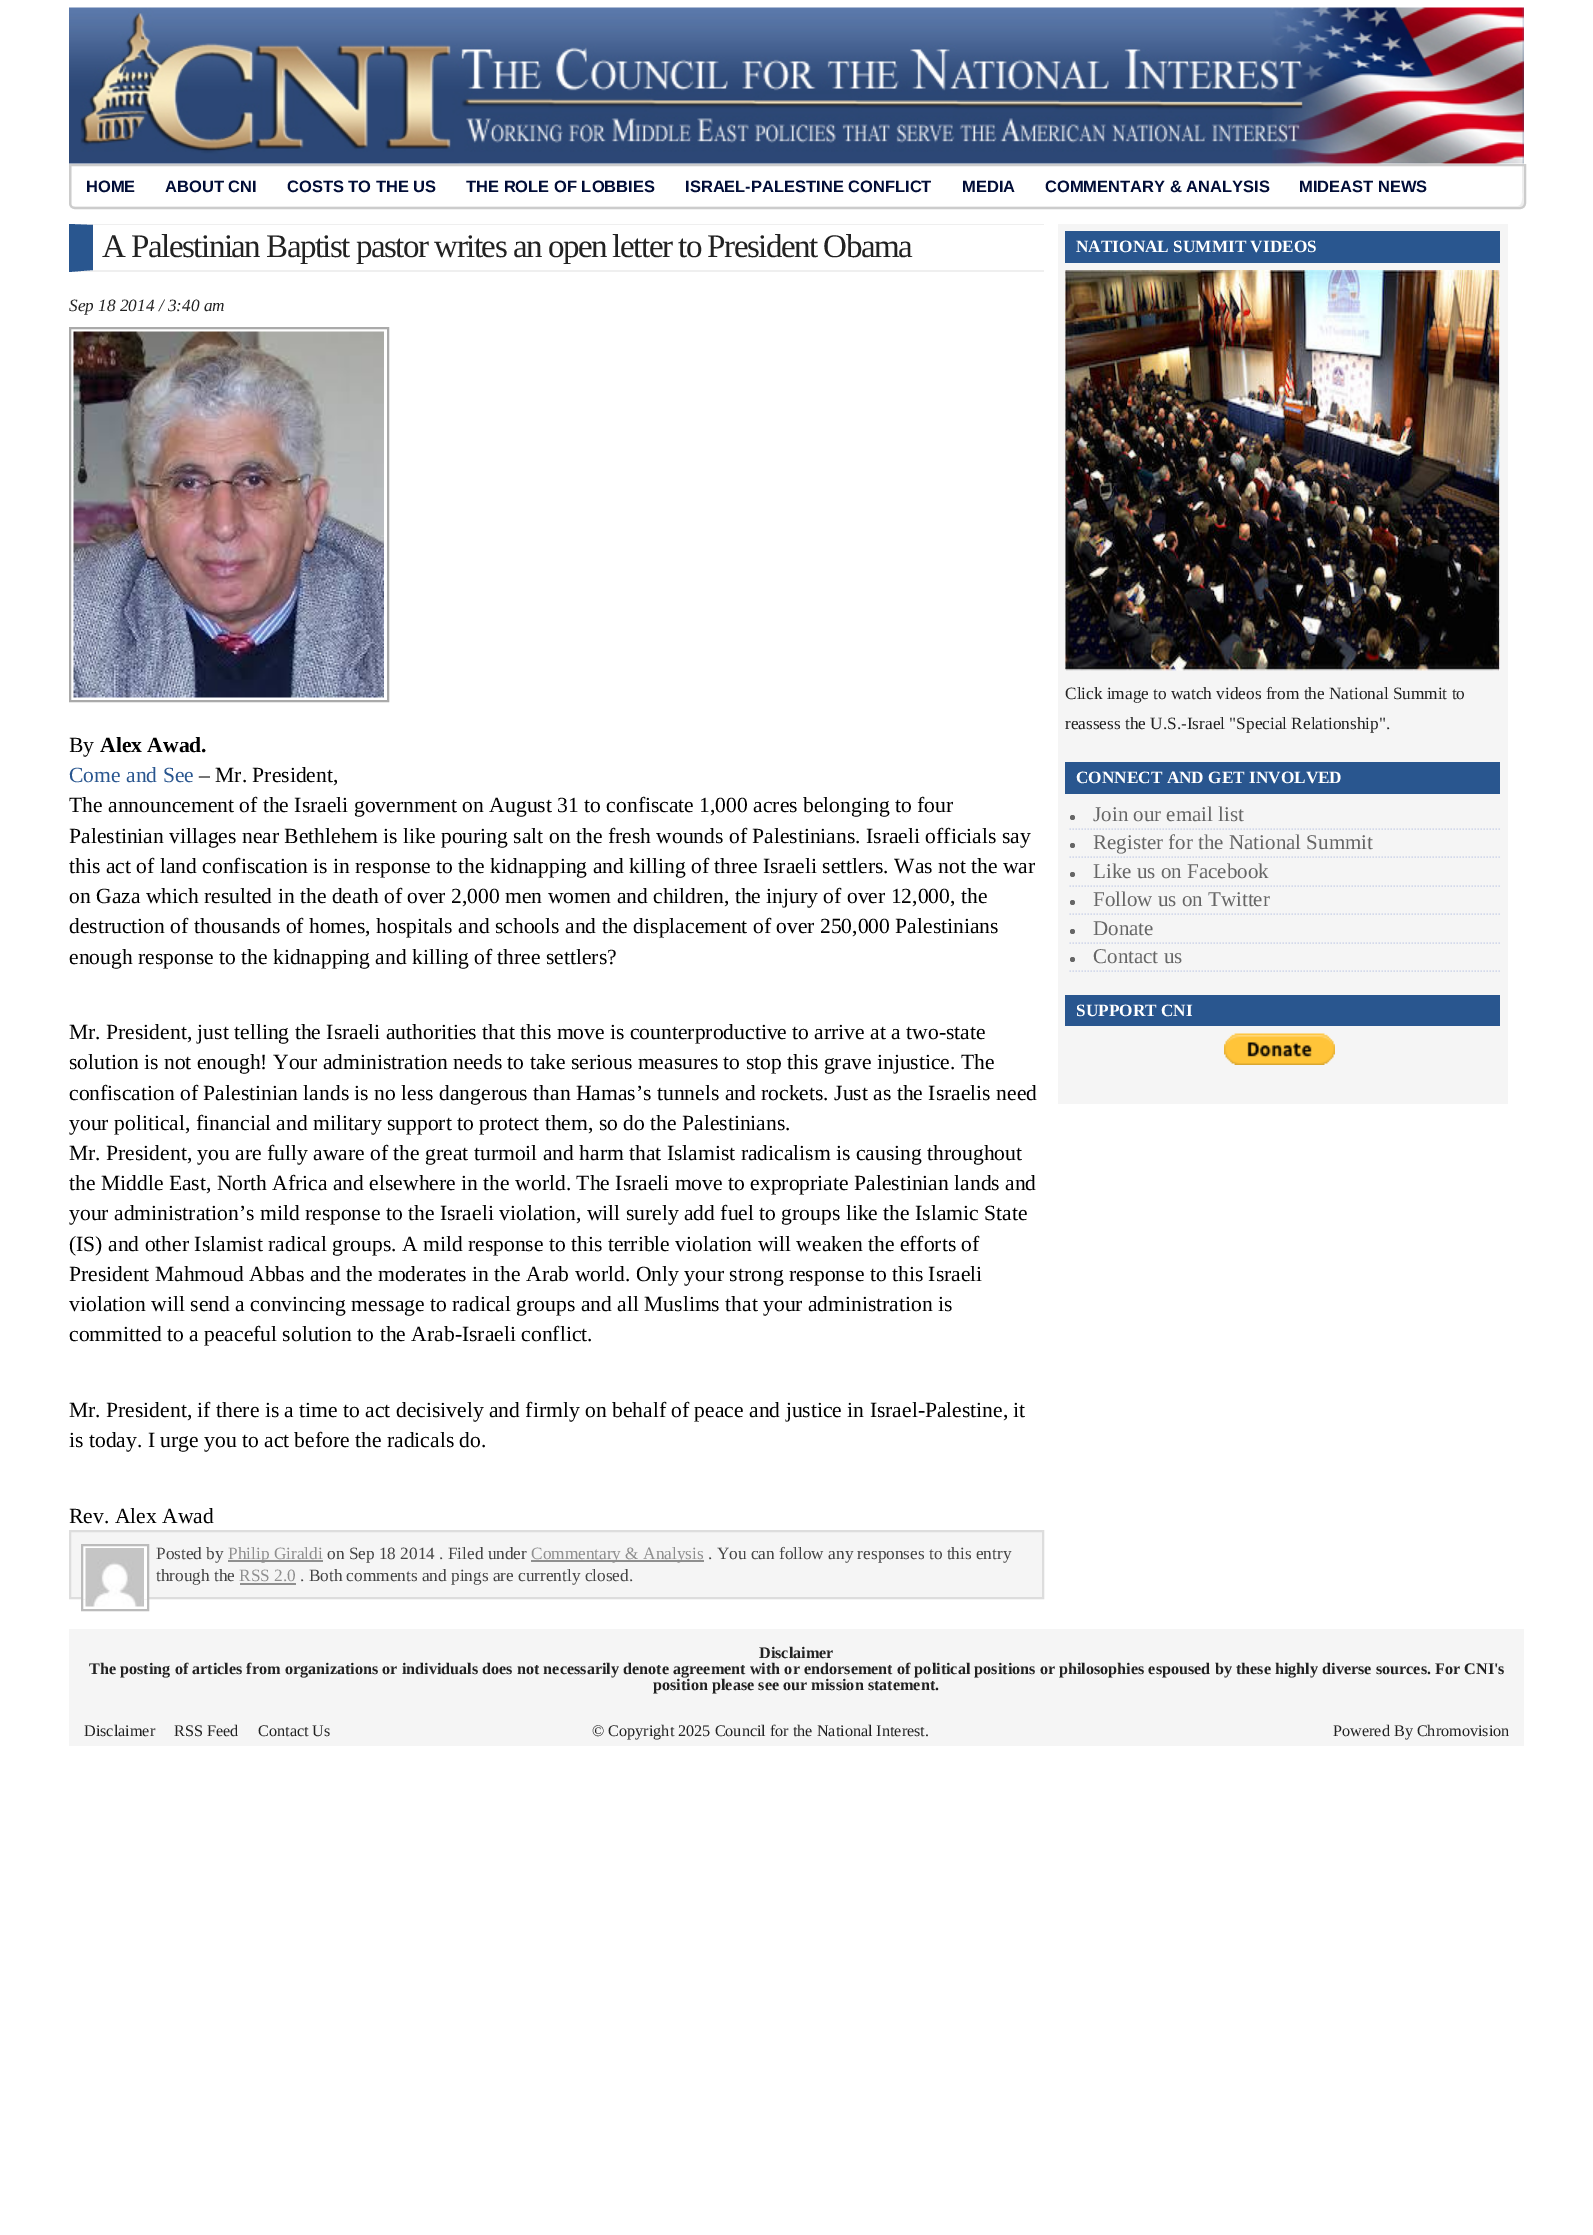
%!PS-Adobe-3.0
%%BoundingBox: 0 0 1593 2235
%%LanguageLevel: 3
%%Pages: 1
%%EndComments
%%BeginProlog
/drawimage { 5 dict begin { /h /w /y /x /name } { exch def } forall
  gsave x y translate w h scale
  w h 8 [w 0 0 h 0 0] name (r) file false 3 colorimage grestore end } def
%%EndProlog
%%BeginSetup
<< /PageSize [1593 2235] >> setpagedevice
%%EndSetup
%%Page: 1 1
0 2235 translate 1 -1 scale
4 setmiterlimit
1 setgray
0 0 1593 2235 rectfill
(images/1.raw) 69 7 1455 157 drawimage
0.933 setgray
newpath 73 206 moveto 74 207 75 207 76 207 curveto 1519 207 lineto 1522 207 1524 205 1524 202 curveto 1524 165 lineto 1522 165 lineto 1522 189 lineto 1522 191 1524 206 1518 206 curveto closepath fill
newpath 72 166 moveto 1524 166 lineto 1524 165 lineto 71 165 lineto 71 202 lineto 71 203 71 204 72 205 curveto 72 204 lineto closepath fill
0.8 setgray
2 setlinewidth
newpath 70 165 moveto 1525 165 lineto 1525 203 lineto 1525 206 1523 208 1520 208 curveto 75 208 lineto 72 208 70 206 70 203 curveto closepath stroke
0.937 setgray
newpath 69 224 moveto 1044 224 lineto 1044 225 lineto 93 225 lineto closepath fill
newpath 1044 272 moveto 69 272 lineto 93 270 lineto 1044 270 lineto closepath fill
0.161 0.337 0.561 setrgbcolor
newpath 69 272 moveto 69 224 lineto 93 225 lineto 93 270 lineto closepath fill
0.667 setgray
70 328 318 373 rectstroke
(images/2.raw) 73 331 311 367 drawimage
0.961 setgray
newpath 70 1531 moveto 1043 1531 lineto 1043 1598 lineto 70 1598 lineto closepath gsave fill grestore
0.867 setgray
stroke
1 setgray
83 1546 64 53 rectfill
0.733 setgray
82 1545 66 65 rectstroke
(images/3.raw) 85 1548 59 59 drawimage
0.561 setgray
228 1560 95 2 rectfill
531 1560 173 2 rectfill
240 1583 56 2 rectfill
0.961 setgray
1058 224 450 880 rectfill
0.161 0.337 0.561 setrgbcolor
1065 231 435 32 rectfill
(images/4.raw) 1065 270 435 401 drawimage
1065 762 435 32 rectfill
0.827 0.851 0.922 setrgbcolor
1.5 setlinewidth
[1.5 1.5] 0 setdash
newpath 1069.5 829 moveto 1500 829 lineto stroke
0.4 setgray
newpath 1072.5 817.5 2.5 0 360 arc closepath fill
0.827 0.851 0.922 setrgbcolor
newpath 1069.5 857 moveto 1500 857 lineto stroke
0.4 setgray
newpath 1072.5 845.5 2.5 0 360 arc closepath fill
0.827 0.851 0.922 setrgbcolor
newpath 1069.5 886 moveto 1500 886 lineto stroke
0.4 setgray
newpath 1072.5 874.5 2.5 0 360 arc closepath fill
0.827 0.851 0.922 setrgbcolor
newpath 1069.5 914 moveto 1500 914 lineto stroke
0.4 setgray
newpath 1072.5 902.5 2.5 0 360 arc closepath fill
0.827 0.851 0.922 setrgbcolor
newpath 1069.5 943 moveto 1500 943 lineto stroke
0.4 setgray
newpath 1072.5 931.5 2.5 0 360 arc closepath fill
0.827 0.851 0.922 setrgbcolor
newpath 1069.5 971 moveto 1500 971 lineto stroke
0.4 setgray
newpath 1072.5 959.5 2.5 0 360 arc closepath fill
0.161 0.337 0.561 setrgbcolor
1065 995 435 31 rectfill
(images/5.raw) 1224 1033 111 32 drawimage
0.961 setgray
69 1629 1455 117 rectfill
/LiberationSans-Bold [16.5 0 0 -16.5 0 0] selectfont
0.004 0.051 0.216 setrgbcolor
86 192 moveto (HOME) show
165 192 moveto (ABOUT CNI) show
287 192 moveto (COSTS TO THE US) show
466 192 moveto (THE ROLE OF LOBBIES) show
685 192 moveto (ISRAEL-PALESTINE CONFLICT) show
962 192 moveto (MEDIA) show
1045 192 moveto (COMMENTARY & ANALYSIS) show
1299 192 moveto (MIDEAST NEWS) show
/LiberationSerif-Regular [33 0 0 -33 0 0] selectfont
0.133 setgray
102 257 moveto -1.5 0 (A Palestinian Baptist pastor writes an open letter to President Obama) ashow
/LiberationSerif-Italic [17.25 0 0 -17.25 0 0] selectfont
69 311 moveto (Sep 18 2014 / 3:40 am) show
/LiberationSerif-Regular [21.6 0 0 -21.6 0 0] selectfont
0 setgray
69 752 moveto (By) show
/LiberationSerif-Bold [21.6 0 0 -21.6 0 0] selectfont
100 752 moveto (Alex Awad.) show
/LiberationSerif-Regular [21.6 0 0 -21.6 0 0] selectfont
0.161 0.337 0.561 setrgbcolor
69 782 moveto (Come and See) show
0 setgray
199 782 moveto (– Mr. President,) show
69 812 moveto (The announcement of the Israeli government on August 31 to confiscate 1,000 acres belonging to four) show
69 843 moveto (Palestinian villages near Bethlehem is like pouring salt on the fresh wounds of Palestinians. Israeli officials say) show
69 873 moveto (this act of land confiscation is in response to the kidnapping and killing of three Israeli settlers. Was not the war) show
69 903 moveto (on Gaza which resulted in the death of over 2,000 men women and children, the injury of over 12,000, the) show
69 933 moveto (destruction of thousands of homes, hospitals and schools and the displacement of over 250,000 Palestinians) show
69 964 moveto (enough response to the kidnapping and killing of three settlers?) show
69 1039 moveto (Mr. President, just telling the Israeli authorities that this move is counterproductive to arrive at a two-state) show
69 1069 moveto (solution is not enough! Your administration needs to take serious measures to stop this grave injustice. The) show
69 1100 moveto (confiscation of Palestinian lands is no less dangerous than Hamas’s tunnels and rockets. Just as the Israelis need) show
69 1130 moveto (your political, financial and military support to protect them, so do the Palestinians.) show
69 1160 moveto (Mr. President, you are fully aware of the great turmoil and harm that Islamist radicalism is causing throughout) show
69 1190 moveto (the Middle East, North Africa and elsewhere in the world. The Israeli move to expropriate Palestinian lands and) show
69 1220 moveto (your administration’s mild response to the Israeli violation, will surely add fuel to groups like the Islamic State) show
69 1251 moveto (\(IS\) and other Islamist radical groups. A mild response to this terrible violation will weaken the efforts of) show
69 1281 moveto (President Mahmoud Abbas and the moderates in the Arab world. Only your strong response to this Israeli) show
69 1311 moveto (violation will send a convincing message to radical groups and all Muslims that your administration is) show
69 1341 moveto (committed to a peaceful solution to the Arab-Israeli conflict.) show
69 1417 moveto (Mr. President, if there is a time to act decisively and firmly on behalf of peace and justice in Israel-Palestine, it) show
69 1447 moveto (is today. I urge you to act before the radicals do.) show
69 1523 moveto (Rev. Alex Awad) show
/LiberationSerif-Regular [17.25 0 0 -17.25 0 0] selectfont
0.267 setgray
156 1559 moveto (Posted by) show
0.561 setgray
228 1559 moveto (Philip Giraldi) show
0.267 setgray
327 1559 moveto (on Sep 18 2014 . Filed under) show
0.561 setgray
531 1559 moveto (Commentary & Analysis) show
0.267 setgray
708 1559 moveto (. You can follow any responses to this entry) show
156 1581 moveto (through the) show
0.561 setgray
239 1581 moveto (RSS 2.0) show
0.267 setgray
300 1581 moveto (. Both comments and pings are currently closed.) show
/LiberationSerif-Bold [17.25 0 0 -17.25 0 0] selectfont
1 setgray
1076 252 moveto (NATIONAL SUMMIT VIDEOS) show
/LiberationSerif-Regular [17.25 0 0 -17.25 0 0] selectfont
0.133 setgray
1065 699 moveto (Click image to watch videos from the National Summit to) show
1065 729 moveto (reassess the U.S.-Israel "Special Relationship".) show
/LiberationSerif-Bold [17.25 0 0 -17.25 0 0] selectfont
1 setgray
1076 783 moveto (CONNECT AND GET INVOLVED) show
/LiberationSerif-Regular [21 0 0 -21 0 0] selectfont
0.4 setgray
1093 821 moveto (Join our email list) show
1093 849 moveto (Register for the National Summit) show
1093 878 moveto (Like us on Facebook) show
1093 906 moveto (Follow us on Twitter) show
1093 935 moveto (Donate) show
1093 963 moveto (Contact us) show
/LiberationSerif-Bold [17.25 0 0 -17.25 0 0] selectfont
1 setgray
1076 1016 moveto (SUPPORT CNI) show
/LiberationSerif-Bold [16.2 0 0 -16.2 0 0] selectfont
0.133 setgray
759 1658 moveto (Disclaimer) show
89 1674 moveto (The posting of articles from organizations or individuals does not necessarily denote agreement with or endorsement of political positions or philosophies espoused by these highly diverse sources. For CNI's) show
653 1690 moveto (position please see our mission statement.) show
/LiberationSerif-Regular [16.2 0 0 -16.2 0 0] selectfont
84 1736 moveto (Disclaimer) show
174 1736 moveto (RSS Feed) show
258 1736 moveto (Contact Us) show
592 1736 moveto (© Copyright 2025 Council for the National Interest.) show
1333 1736 moveto (Powered By Chromovision) show
showpage
%%EOF
